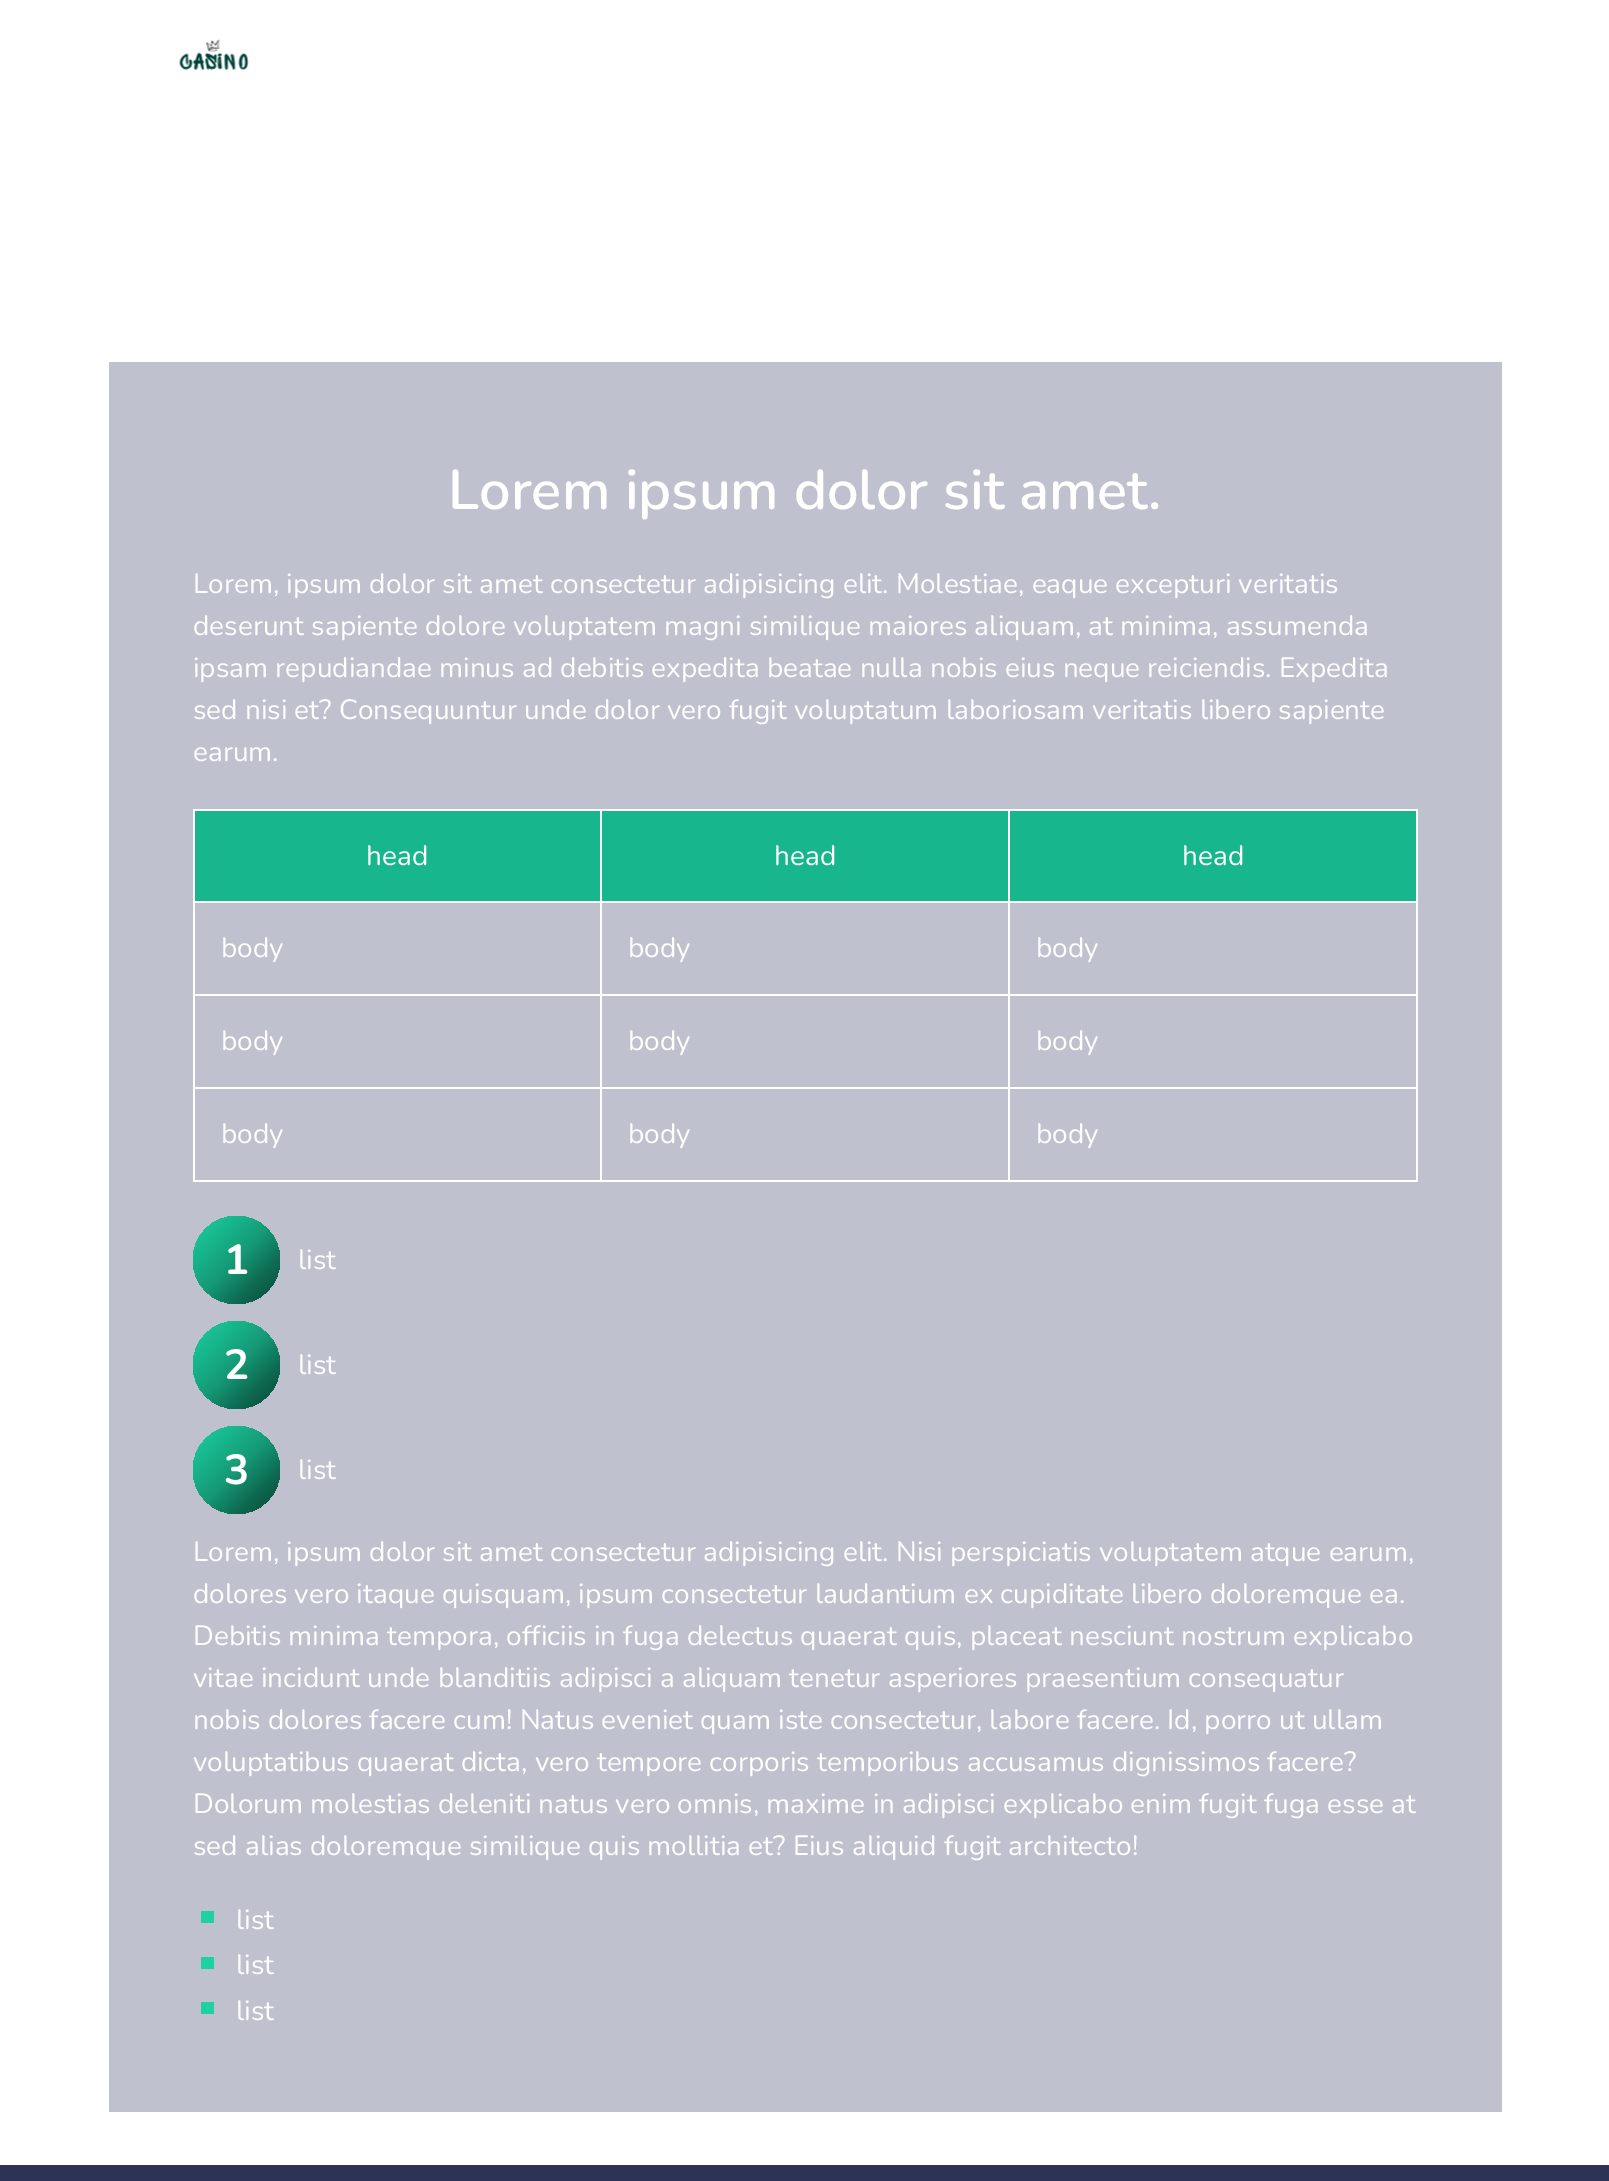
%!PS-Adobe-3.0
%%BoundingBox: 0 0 1609 2181
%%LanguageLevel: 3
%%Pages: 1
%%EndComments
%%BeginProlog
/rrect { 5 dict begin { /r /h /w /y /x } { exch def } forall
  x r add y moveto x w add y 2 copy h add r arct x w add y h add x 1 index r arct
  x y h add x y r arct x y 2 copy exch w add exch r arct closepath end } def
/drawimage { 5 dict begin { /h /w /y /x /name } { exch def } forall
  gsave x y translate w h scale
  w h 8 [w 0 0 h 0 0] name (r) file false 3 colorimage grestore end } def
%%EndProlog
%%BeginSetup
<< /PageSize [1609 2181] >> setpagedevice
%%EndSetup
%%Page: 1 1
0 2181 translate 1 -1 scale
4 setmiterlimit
1 setgray
0 0 1609 2181 rectfill
(images/1.raw) 179 39 70 31 drawimage
0.753 0.757 0.812 setrgbcolor
109 362 1393 1750 rectfill
0.094 0.714 0.549 setrgbcolor
195 811 405 90 rectfill
1 setgray
1008 809 410 2 rectfill
1008 901 410 2 rectfill
1008 994 410 2 rectfill
1008 1087 410 2 rectfill
1416 1087 2 94 rectfill
1008 1180 410 2 rectfill
1008 1087 2 94 rectfill
600 1087 410 2 rectfill
1008 994 2 95 rectfill
600 994 410 2 rectfill
1008 901 2 95 rectfill
600 901 410 2 rectfill
1008 809 2 94 rectfill
600 809 410 2 rectfill
600 1180 410 2 rectfill
600 1087 2 94 rectfill
193 1087 409 2 rectfill
600 994 2 95 rectfill
193 994 409 2 rectfill
600 901 2 95 rectfill
193 901 409 2 rectfill
600 809 2 94 rectfill
193 809 409 2 rectfill
193 1180 409 2 rectfill
193 1087 2 94 rectfill
193 994 2 95 rectfill
193 901 2 95 rectfill
193 809 2 94 rectfill
0.094 0.714 0.549 setrgbcolor
602 811 406 90 rectfill
1010 811 406 90 rectfill
1 setgray
1416 994 2 95 rectfill
1416 901 2 95 rectfill
1416 809 2 94 rectfill
gsave 193 1216 87 88 43.5 rrect clip newpath
<< /ShadingType 2 /ColorSpace /DeviceRGB /Coords [280 1304 193 1216] /Extend [true true] /Function << /FunctionType 3 /Domain [0 1] /Functions [<< /FunctionType 2 /Domain [0 1] /C0 [0.035 0.271 0.208] /C1 [0.055 0.412 0.314] /N 1 >> << /FunctionType 2 /Domain [0 1] /C0 [0.055 0.412 0.314] /C1 [0.082 0.6 0.463] /N 1 >> << /FunctionType 2 /Domain [0 1] /C0 [0.082 0.6 0.463] /C1 [0.094 0.714 0.549] /N 1 >> << /FunctionType 2 /Domain [0 1] /C0 [0.094 0.714 0.549] /C1 [0.114 0.82 0.631] /N 1 >>] /Bounds [0.25 0.5 0.75] /Encode [0 1 0 1 0 1 0 1] >> >> shfill grestore
gsave 193 1321 87 88 43.5 rrect clip newpath
<< /ShadingType 2 /ColorSpace /DeviceRGB /Coords [280 1409 193 1321] /Extend [true true] /Function << /FunctionType 3 /Domain [0 1] /Functions [<< /FunctionType 2 /Domain [0 1] /C0 [0.035 0.271 0.208] /C1 [0.055 0.412 0.314] /N 1 >> << /FunctionType 2 /Domain [0 1] /C0 [0.055 0.412 0.314] /C1 [0.082 0.6 0.463] /N 1 >> << /FunctionType 2 /Domain [0 1] /C0 [0.082 0.6 0.463] /C1 [0.094 0.714 0.549] /N 1 >> << /FunctionType 2 /Domain [0 1] /C0 [0.094 0.714 0.549] /C1 [0.114 0.82 0.631] /N 1 >>] /Bounds [0.25 0.5 0.75] /Encode [0 1 0 1 0 1 0 1] >> >> shfill grestore
gsave 193 1426 87 88 43.5 rrect clip newpath
<< /ShadingType 2 /ColorSpace /DeviceRGB /Coords [280 1514 193 1426] /Extend [true true] /Function << /FunctionType 3 /Domain [0 1] /Functions [<< /FunctionType 2 /Domain [0 1] /C0 [0.035 0.271 0.208] /C1 [0.055 0.412 0.314] /N 1 >> << /FunctionType 2 /Domain [0 1] /C0 [0.055 0.412 0.314] /C1 [0.082 0.6 0.463] /N 1 >> << /FunctionType 2 /Domain [0 1] /C0 [0.082 0.6 0.463] /C1 [0.094 0.714 0.549] /N 1 >> << /FunctionType 2 /Domain [0 1] /C0 [0.094 0.714 0.549] /C1 [0.114 0.82 0.631] /N 1 >>] /Bounds [0.25 0.5 0.75] /Encode [0 1 0 1 0 1 0 1] >> >> shfill grestore
0.114 0.82 0.631 setrgbcolor
201 1911 13 12 rectfill
201 1957 13 12 rectfill
201 2002 13 12 rectfill
0.173 0.2 0.341 setrgbcolor
0 2165 1609 16 rectfill
/Nunito-SemiBold [56 0 0 -56 0 0] selectfont
1 setgray
448 509 moveto (Lorem ipsum dolor sit amet.) show
/Nunito-Regular [28 0 0 -28 0 0] selectfont
193 593 moveto (Lorem, ipsum dolor sit amet consectetur adipisicing elit. Molestiae, eaque excepturi veritatis) show
193 635 moveto (deserunt sapiente dolore voluptatem magni similique maiores aliquam, at minima, assumenda) show
193 677 moveto (ipsam repudiandae minus ad debitis expedita beatae nulla nobis eius neque reiciendis. Expedita) show
193 719 moveto (sed nisi et? Consequuntur unde dolor vero fugit voluptatum laboriosam veritatis libero sapiente) show
193 761 moveto (earum.) show
366 865 moveto (head) show
774 865 moveto (head) show
1182 865 moveto (head) show
221 957 moveto (body) show
628 957 moveto (body) show
1036 957 moveto (body) show
221 1050 moveto (body) show
628 1050 moveto (body) show
1036 1050 moveto (body) show
221 1143 moveto (body) show
628 1143 moveto (body) show
1036 1143 moveto (body) show
/Nunito-Bold [42 0 0 -42 0 0] selectfont
224 1274 moveto (1) show
/Nunito-Regular [28 0 0 -28 0 0] selectfont
298 1269 moveto (list) show
/Nunito-Bold [42 0 0 -42 0 0] selectfont
224 1379 moveto (2) show
/Nunito-Regular [28 0 0 -28 0 0] selectfont
298 1374 moveto (list) show
/Nunito-Bold [42 0 0 -42 0 0] selectfont
224 1484 moveto (3) show
/Nunito-Regular [28 0 0 -28 0 0] selectfont
298 1479 moveto (list) show
193 1561 moveto (Lorem, ipsum dolor sit amet consectetur adipisicing elit. Nisi perspiciatis voluptatem atque earum,) show
193 1603 moveto (dolores vero itaque quisquam, ipsum consectetur laudantium ex cupiditate libero doloremque ea.) show
193 1645 moveto (Debitis minima tempora, officiis in fuga delectus quaerat quis, placeat nesciunt nostrum explicabo) show
193 1687 moveto (vitae incidunt unde blanditiis adipisci a aliquam tenetur asperiores praesentium consequatur) show
193 1729 moveto (nobis dolores facere cum! Natus eveniet quam iste consectetur, labore facere. Id, porro ut ullam) show
193 1771 moveto (voluptatibus quaerat dicta, vero tempore corporis temporibus accusamus dignissimos facere?) show
193 1813 moveto (Dolorum molestias deleniti natus vero omnis, maxime in adipisci explicabo enim fugit fuga esse at) show
193 1855 moveto (sed alias doloremque similique quis mollitia et? Eius aliquid fugit architecto!) show
236 1929 moveto (list) show
236 1974 moveto (list) show
236 2020 moveto (list) show
showpage
%%EOF
